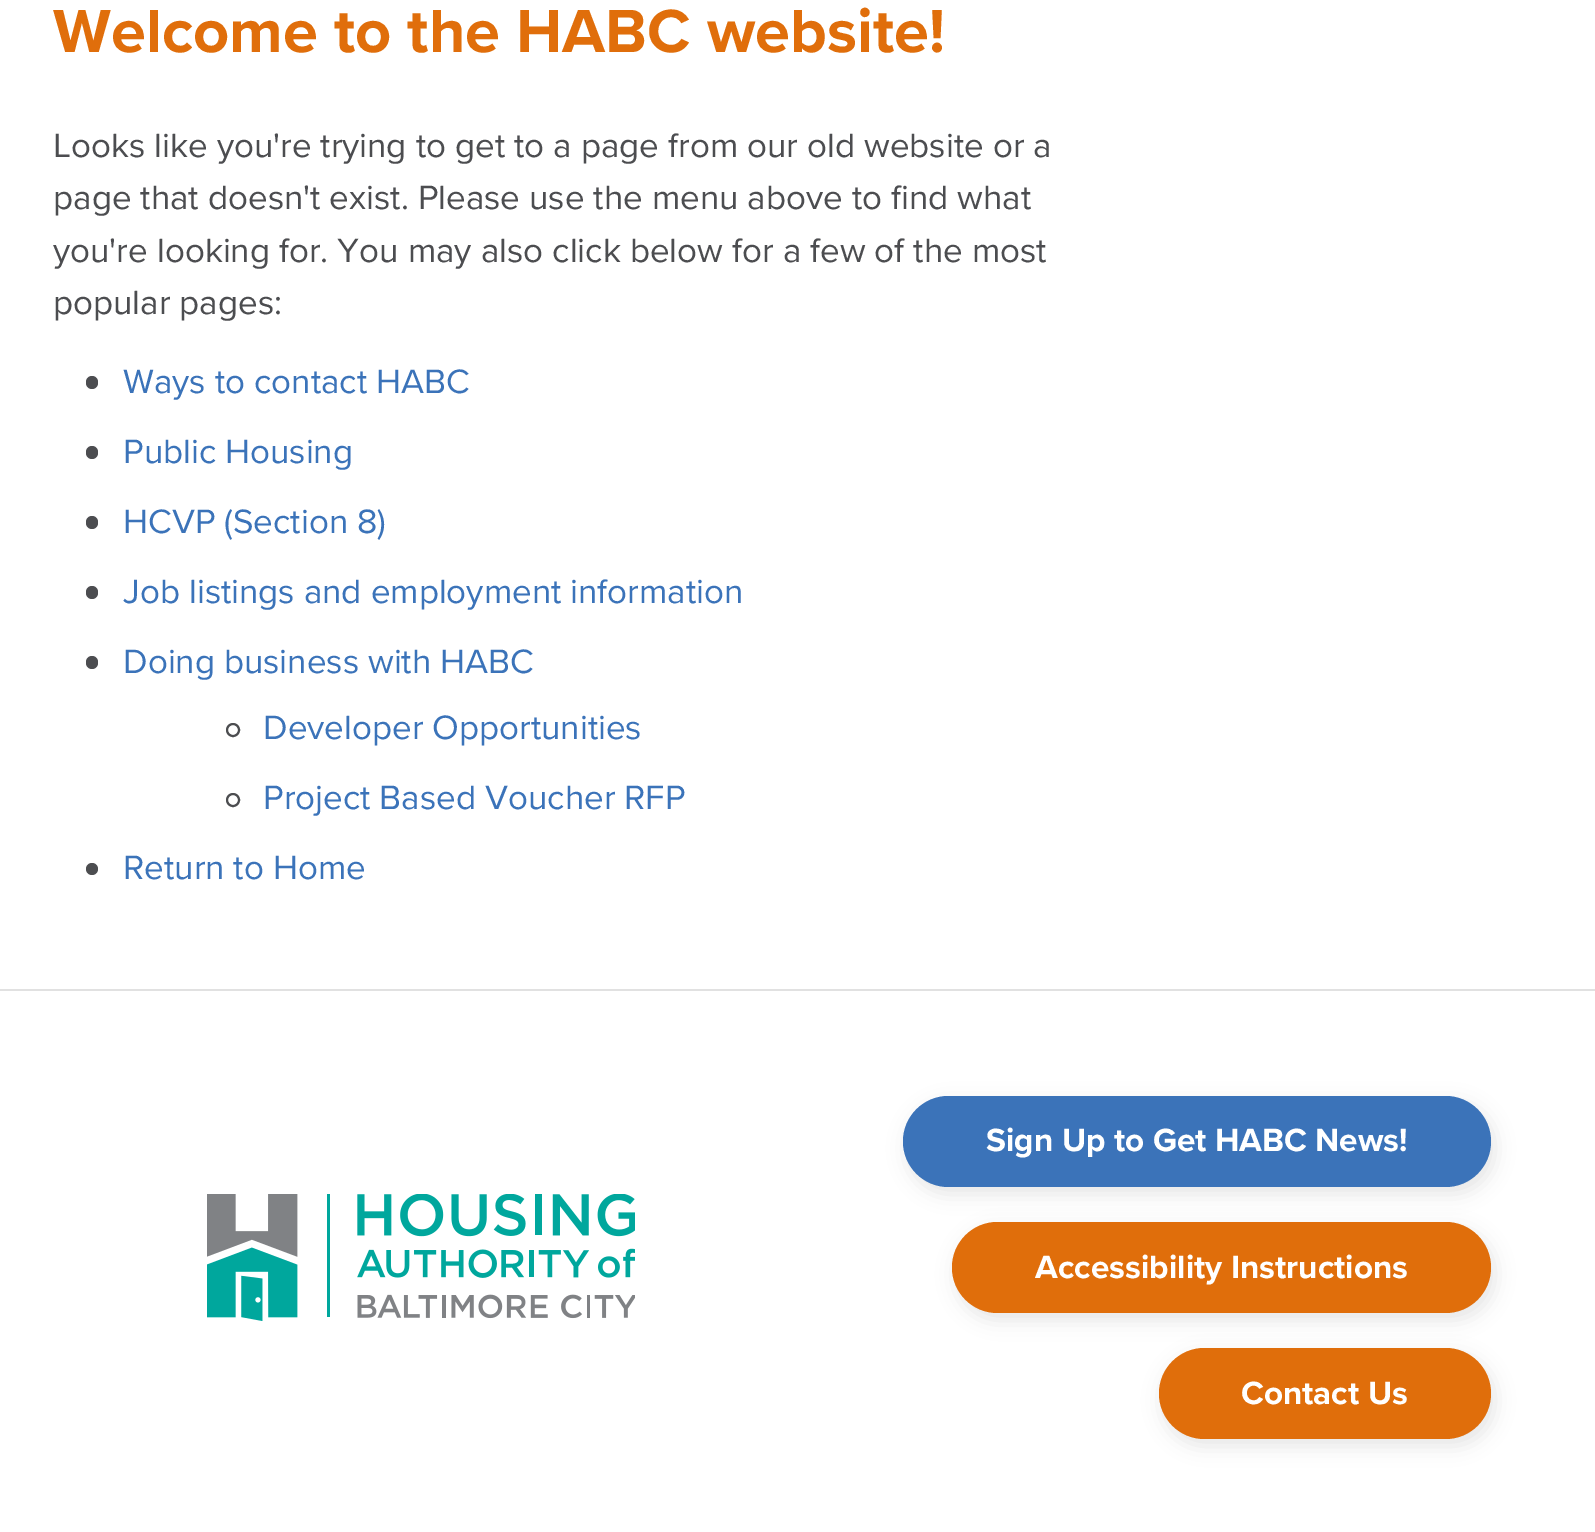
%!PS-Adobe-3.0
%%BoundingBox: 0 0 1595 1532
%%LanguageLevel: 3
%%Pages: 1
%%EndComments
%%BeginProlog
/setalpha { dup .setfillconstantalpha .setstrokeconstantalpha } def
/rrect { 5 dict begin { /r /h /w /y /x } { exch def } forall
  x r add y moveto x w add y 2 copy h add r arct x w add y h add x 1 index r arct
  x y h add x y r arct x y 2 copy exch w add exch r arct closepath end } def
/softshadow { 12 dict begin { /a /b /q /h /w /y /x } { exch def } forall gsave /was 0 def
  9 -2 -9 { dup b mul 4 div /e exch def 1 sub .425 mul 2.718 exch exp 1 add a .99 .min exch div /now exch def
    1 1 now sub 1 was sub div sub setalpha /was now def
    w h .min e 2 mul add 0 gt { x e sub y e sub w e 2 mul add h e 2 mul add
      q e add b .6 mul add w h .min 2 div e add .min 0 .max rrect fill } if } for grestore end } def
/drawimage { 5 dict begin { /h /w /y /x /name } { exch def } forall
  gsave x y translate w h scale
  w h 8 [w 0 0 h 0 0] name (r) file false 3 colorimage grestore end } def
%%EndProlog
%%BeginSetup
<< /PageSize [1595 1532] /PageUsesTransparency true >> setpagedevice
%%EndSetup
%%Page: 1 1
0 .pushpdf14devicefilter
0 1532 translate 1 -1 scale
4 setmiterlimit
1 setgray
0 0 1595 1532 rectfill
0.298 0.302 0.314 setrgbcolor
86 376 12 13 6 rrect fill
86 446 12 13 6 rrect fill
86 516 12 13 6 rrect fill
86 586 12 13 6 rrect fill
86 656 12 13 6 rrect fill
2 setlinewidth
newpath 233 730 6 0 360 arc closepath stroke
newpath 233 800 6 0 360 arc closepath stroke
newpath 92 869 6 0 360 arc closepath fill
0.882 setgray
0 989 1595 2 rectfill
(images/1.raw) 207 1194 428 127 drawimage
0 setgray
907 1103 588 91 45.5 9.5 0.1 softshadow
0.231 0.451 0.725 setrgbcolor
903 1096 588 91 45.5 rrect fill
0 setgray
956 1229 539 91 45.5 9.5 0.1 softshadow
0.878 0.431 0.043 setrgbcolor
952 1222 539 91 45.5 rrect fill
0 setgray
1162 1355 333 91 45.5 9.5 0.1 softshadow
0.878 0.431 0.043 setrgbcolor
1159 1348 332 91 45.5 rrect fill
/ProximaNova-Bold [63 0 0 -63 0 0] selectfont
53 52 moveto (Welcome to the HABC website!) show
/ProximaNova-Regular [35 0 0 -35 0 0] selectfont
0.298 0.302 0.314 setrgbcolor
53 157 moveto (Looks like you're trying to get to a page from our old website or a) show
53 209 moveto (page that doesn't exist. Please use the menu above to find what) show
53 262 moveto (you're looking for. You may also click below for a few of the most) show
53 314 moveto (popular pages:) show
0.231 0.451 0.725 setrgbcolor
123 393 moveto (Ways to contact HABC) show
123 463 moveto (Public Housing) show
123 533 moveto (HCVP \(Section 8\)) show
123 603 moveto (Job listings and employment information) show
123 673 moveto (Doing business with HABC) show
263 739 moveto (Developer Opportunities) show
263 809 moveto (Project Based Voucher RFP) show
123 879 moveto (Return to Home) show
/ProximaNova-Bold [33.25 0 0 -33.25 0 0] selectfont
1 setgray
986 1151 moveto (Sign Up to Get HABC News!) show
1035 1278 moveto (Accessibility Instructions) show
1241 1404 moveto (Contact Us) show
.poppdf14devicefilter showpage
%%EOF
